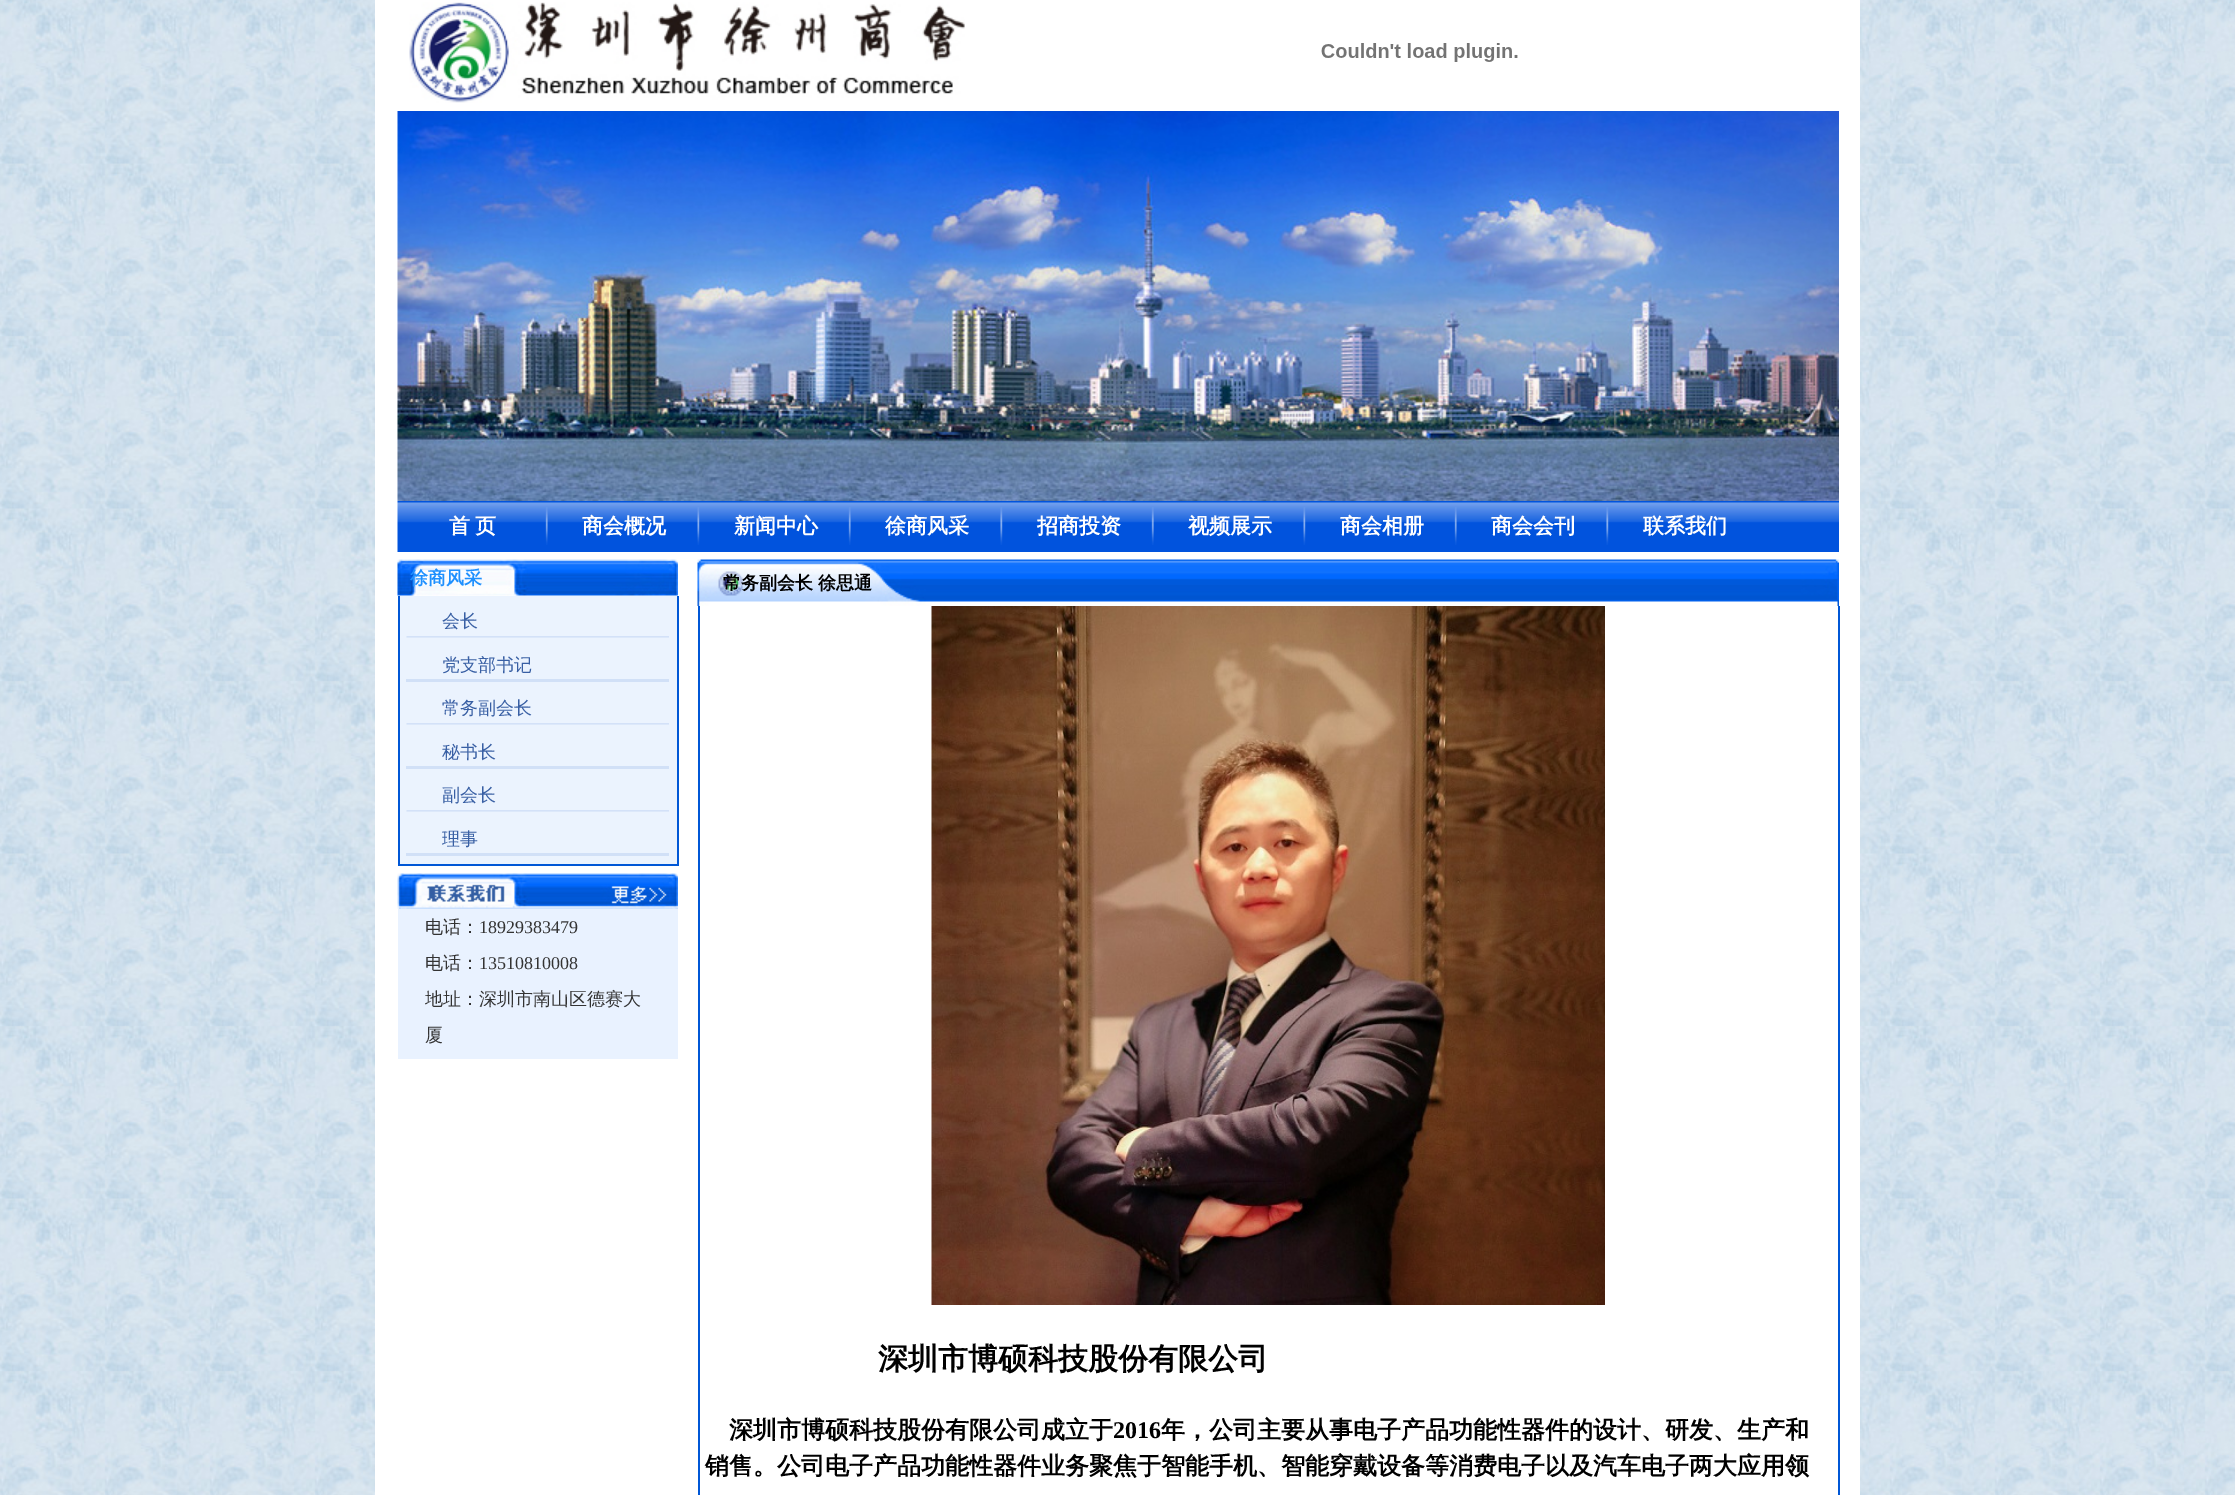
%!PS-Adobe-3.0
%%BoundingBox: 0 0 2235 1495
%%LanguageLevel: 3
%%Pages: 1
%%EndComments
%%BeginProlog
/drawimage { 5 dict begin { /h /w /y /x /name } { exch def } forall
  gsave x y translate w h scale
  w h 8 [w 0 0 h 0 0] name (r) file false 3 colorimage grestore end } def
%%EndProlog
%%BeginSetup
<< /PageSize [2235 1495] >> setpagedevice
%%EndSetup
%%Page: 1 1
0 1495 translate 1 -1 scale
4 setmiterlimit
1 setgray
0 0 2235 1495 rectfill
(images/1.raw) 0 0 2235 1495 drawimage
375 0 1485 1495 rectfill
(images/2.raw) 409 2 556 101 drawimage
(images/3.raw) 1321 43 197 19 drawimage
(images/4.raw) 397 111 1442 390 drawimage
(images/5.raw) 397 501 1442 51 drawimage
(images/6.raw) 545 507 3 38 drawimage
(images/7.raw) 697 507 3 38 drawimage
(images/6.raw) 848 507 3 38 drawimage
(images/8.raw) 1000 507 3 38 drawimage
(images/9.raw) 1151 507 3 38 drawimage
(images/7.raw) 1303 507 3 38 drawimage
(images/6.raw) 1454 507 3 38 drawimage
(images/8.raw) 1606 507 3 38 drawimage
(images/10.raw) 397 559 281 37 drawimage
0.922 0.953 0.996 setrgbcolor
400 596 277 268 rectfill
0 0.341 0.839 setrgbcolor
677 596 2 270 rectfill
398 864 280 2 rectfill
398 596 2 270 rectfill
(images/11.raw) 406 636 263 2 drawimage
0.82 0.878 0.969 setrgbcolor
406 679 263 3 rectfill
(images/11.raw) 406 723 263 2 drawimage
406 766 263 3 rectfill
(images/11.raw) 406 810 263 2 drawimage
406 853 263 3 rectfill
0.914 0.949 1 setrgbcolor
398 909 280 150 rectfill
(images/12.raw) 397 873 281 36 drawimage
(images/13.raw) 697 559 1142 47 drawimage
0 0.341 0.839 setrgbcolor
1838 606 2 889 rectfill
698 606 2 889 rectfill
(images/14.raw) 931 606 674 699 drawimage
/WenQuanYiZenHei-Bold [21 0 0 -21 0 0] selectfont
1 setgray
449 533 moveto -1 0 32 (首 页) widthshow
582 533 moveto (商会概况) show
734 533 moveto (新闻中心) show
885 533 moveto (徐商风采) show
1037 533 moveto (招商投资) show
1188 533 moveto (视频展示) show
1340 533 moveto (商会相册) show
1491 533 moveto (商会会刊) show
1643 533 moveto (联系我们) show
/WenQuanYiZenHei-Bold [18 0 0 -18 0 0] selectfont
0.118 0.565 1 setrgbcolor
410 584 moveto (徐商风采) show
/WenQuanYiZenHei-Medium [18 0 0 -18 0 0] selectfont
0.22 0.373 0.643 setrgbcolor
442 627 moveto (会长) show
442 671 moveto (党支部书记) show
442 714 moveto (常务副会长) show
442 758 moveto (秘书长) show
442 801 moveto (副会长) show
442 845 moveto (理事) show
0.2 setgray
425 933 moveto (电话：) show
/LiberationSerif-Regular [18 0 0 -18 0 0] selectfont
479 933 moveto (18929383479) show
/WenQuanYiZenHei-Medium [18 0 0 -18 0 0] selectfont
425 969 moveto (电话：) show
/LiberationSerif-Regular [18 0 0 -18 0 0] selectfont
479 969 moveto (13510810008) show
/WenQuanYiZenHei-Medium [18 0 0 -18 0 0] selectfont
425 1005 moveto (地址：深圳市南山区德赛大) show
425 1041 moveto (厦) show
/WenQuanYiZenHei-Bold [18 0 0 -18 0 0] selectfont
0 setgray
723 589 moveto (常务副会长) show
818 589 moveto (徐思通) show
/WenQuanYiZenHei-Bold [30 0 0 -30 0 0] selectfont
878 1369 moveto (深圳市博硕科技股份有限公司) show
/WenQuanYiZenHei-Bold [24 0 0 -24 0 0] selectfont
729 1438 moveto (深圳市博硕科技股份有限公司成立于) show
/LiberationSerif-Bold [24 0 0 -24 0 0] selectfont
1113 1438 moveto (2016) show
/WenQuanYiZenHei-Bold [24 0 0 -24 0 0] selectfont
1161 1438 moveto (年，公司主要从事电子产品功能性器件的设计、研发、生产和) show
705 1474 moveto (销售。公司电子产品功能性器件业务聚焦于智能手机、智能穿戴设备等消费电子以及汽车电子两大应用领) show
showpage
%%EOF
